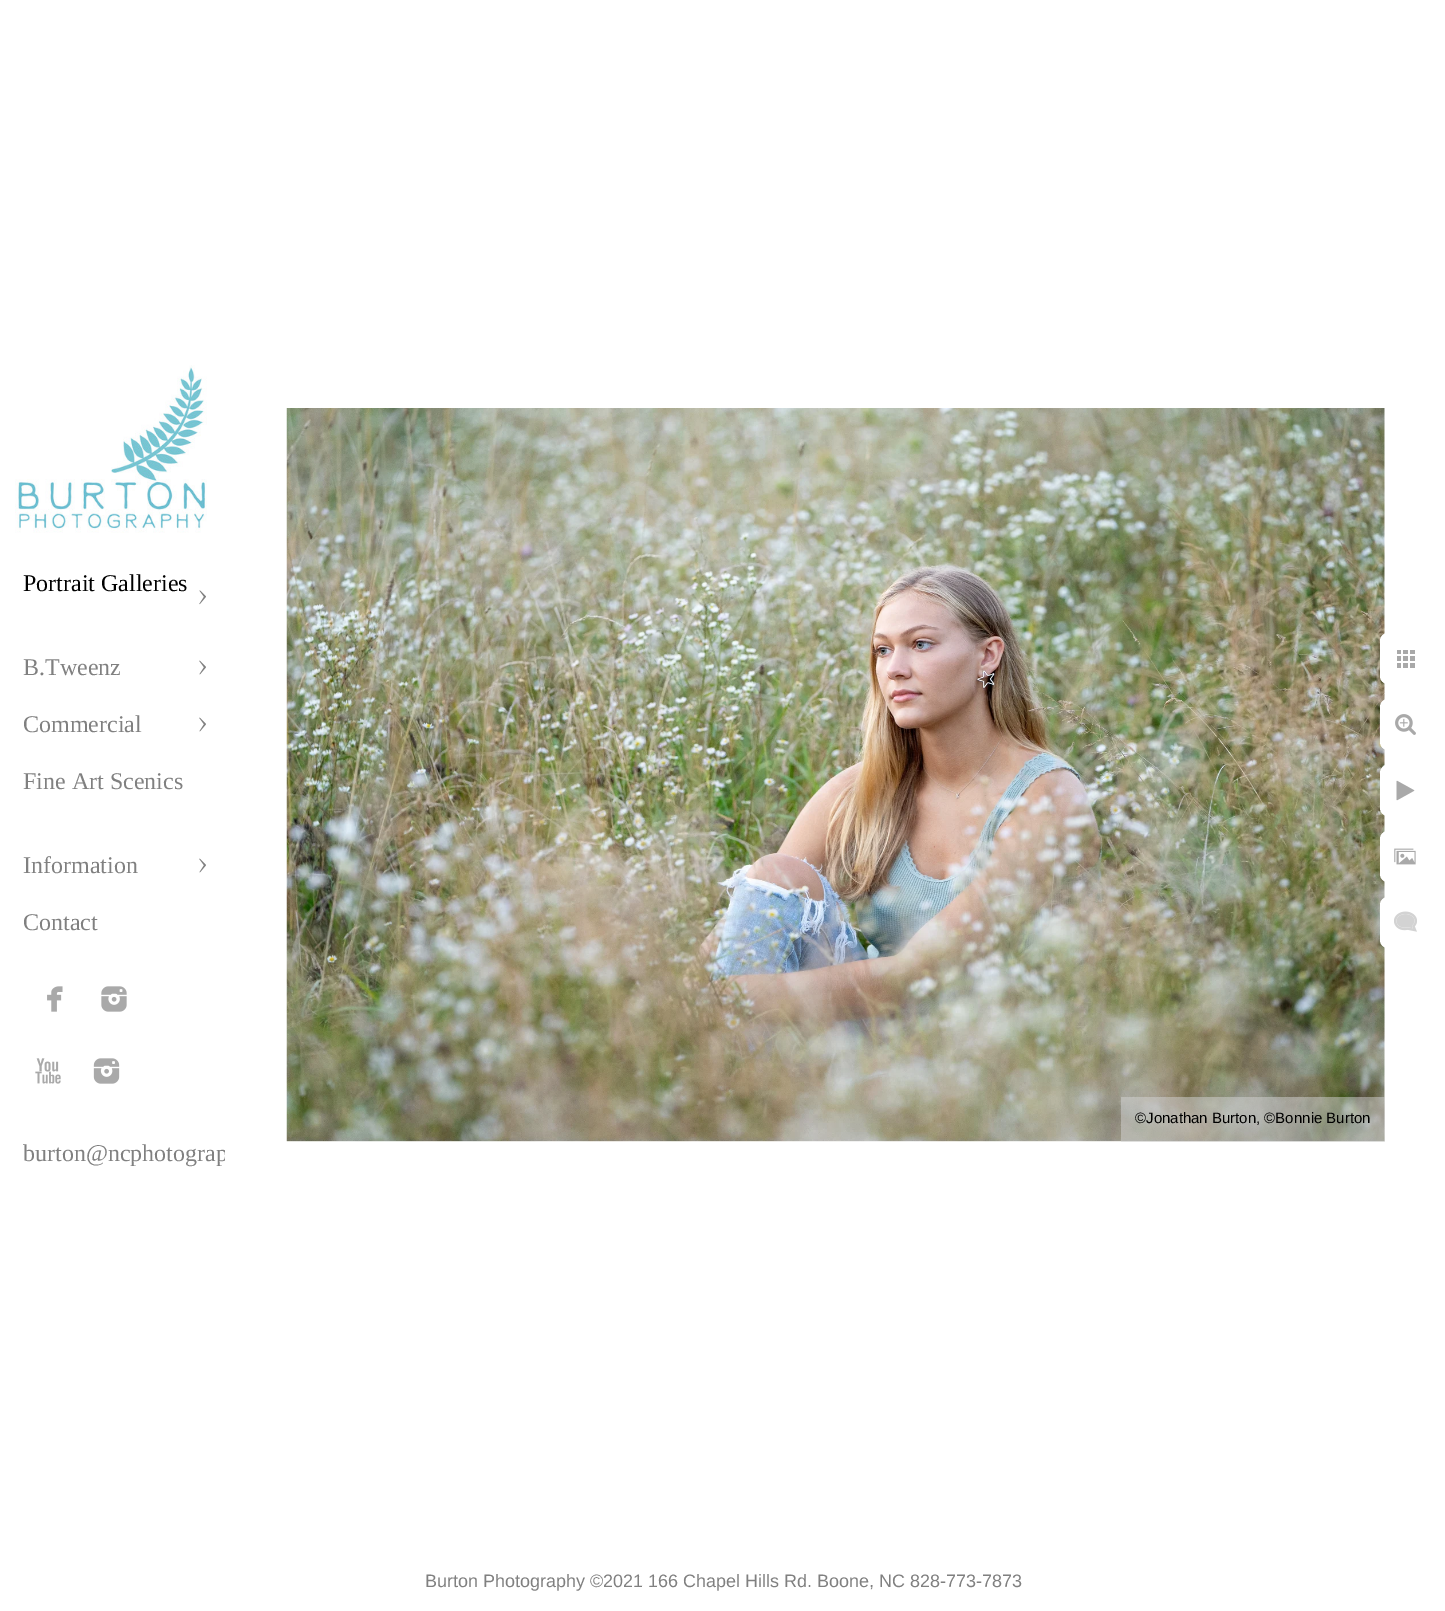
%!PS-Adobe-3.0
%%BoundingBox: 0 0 1445 1611
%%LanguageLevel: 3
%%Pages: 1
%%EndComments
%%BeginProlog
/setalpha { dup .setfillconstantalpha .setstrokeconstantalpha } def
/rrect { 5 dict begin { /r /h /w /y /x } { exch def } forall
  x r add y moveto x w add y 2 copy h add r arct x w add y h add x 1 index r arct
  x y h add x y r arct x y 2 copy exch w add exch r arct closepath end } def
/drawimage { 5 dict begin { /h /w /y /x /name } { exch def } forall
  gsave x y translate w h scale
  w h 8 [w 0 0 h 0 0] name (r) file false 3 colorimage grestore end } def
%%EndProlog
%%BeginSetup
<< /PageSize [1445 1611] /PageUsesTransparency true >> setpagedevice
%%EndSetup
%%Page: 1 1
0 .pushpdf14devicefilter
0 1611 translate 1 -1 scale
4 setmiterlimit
1 setgray
0 0 1445 1611 rectfill
(images/1.raw) 15 365 192 168 drawimage
(images/2.raw) 199 590 7 15 drawimage
(images/3.raw) 199 660 7 15 drawimage
(images/3.raw) 199 717 7 15 drawimage
(images/3.raw) 199 858 7 15 drawimage
(images/4.raw) 47 986 16 26 drawimage
(images/5.raw) 101 986 26 26 drawimage
(images/6.raw) 35 1058 26 26 drawimage
(images/7.raw) 93 1058 27 26 drawimage
(images/13.raw) 286 408 1099 734 drawimage
1380 633 51 51 8 rrect fill
(images/8.raw) 1397 650 18 18 drawimage
1380 699 51 51 8 rrect fill
(images/9.raw) 1395 714 21 21 drawimage
1380 765 51 51 8 rrect fill
(images/10.raw) 1396 780 19 21 drawimage
1380 831 51 51 8 rrect fill
(images/11.raw) 1394 848 22 17 drawimage
1380 897 51 51 8 rrect fill
(images/12.raw) 1394 911 23 21 drawimage
0.5 setalpha
0.827 setgray
1121 1097 264 45 rectfill
/LiberationSerif-Regular [24 0 0 -24 0 0] selectfont
1 setalpha
0 setgray
23 591 moveto (Portrait Galleries) show
0.502 setgray
23 675 moveto (B.Tweenz) show
23 732 moveto (Commercial) show
23 789 moveto (Fine Art Scenics) show
23 873 moveto (Information) show
23 930 moveto (Contact) show
gsave
0 555 225 654 rectclip
23 1161 moveto (burton@ncphotograp) show
grestore
/LiberationSans-Regular [15 0 0 -15 0 0] selectfont
0 setgray
1135 1123 moveto (©Jonathan Burton, ©Bonnie Burton) show
/LiberationSans-Regular [18 0 0 -18 0 0] selectfont
0.502 setgray
425 1587 moveto (Burton Photography ©2021 166 Chapel Hills Rd. Boone, NC 828-773-7873) show
.poppdf14devicefilter showpage
%%EOF
